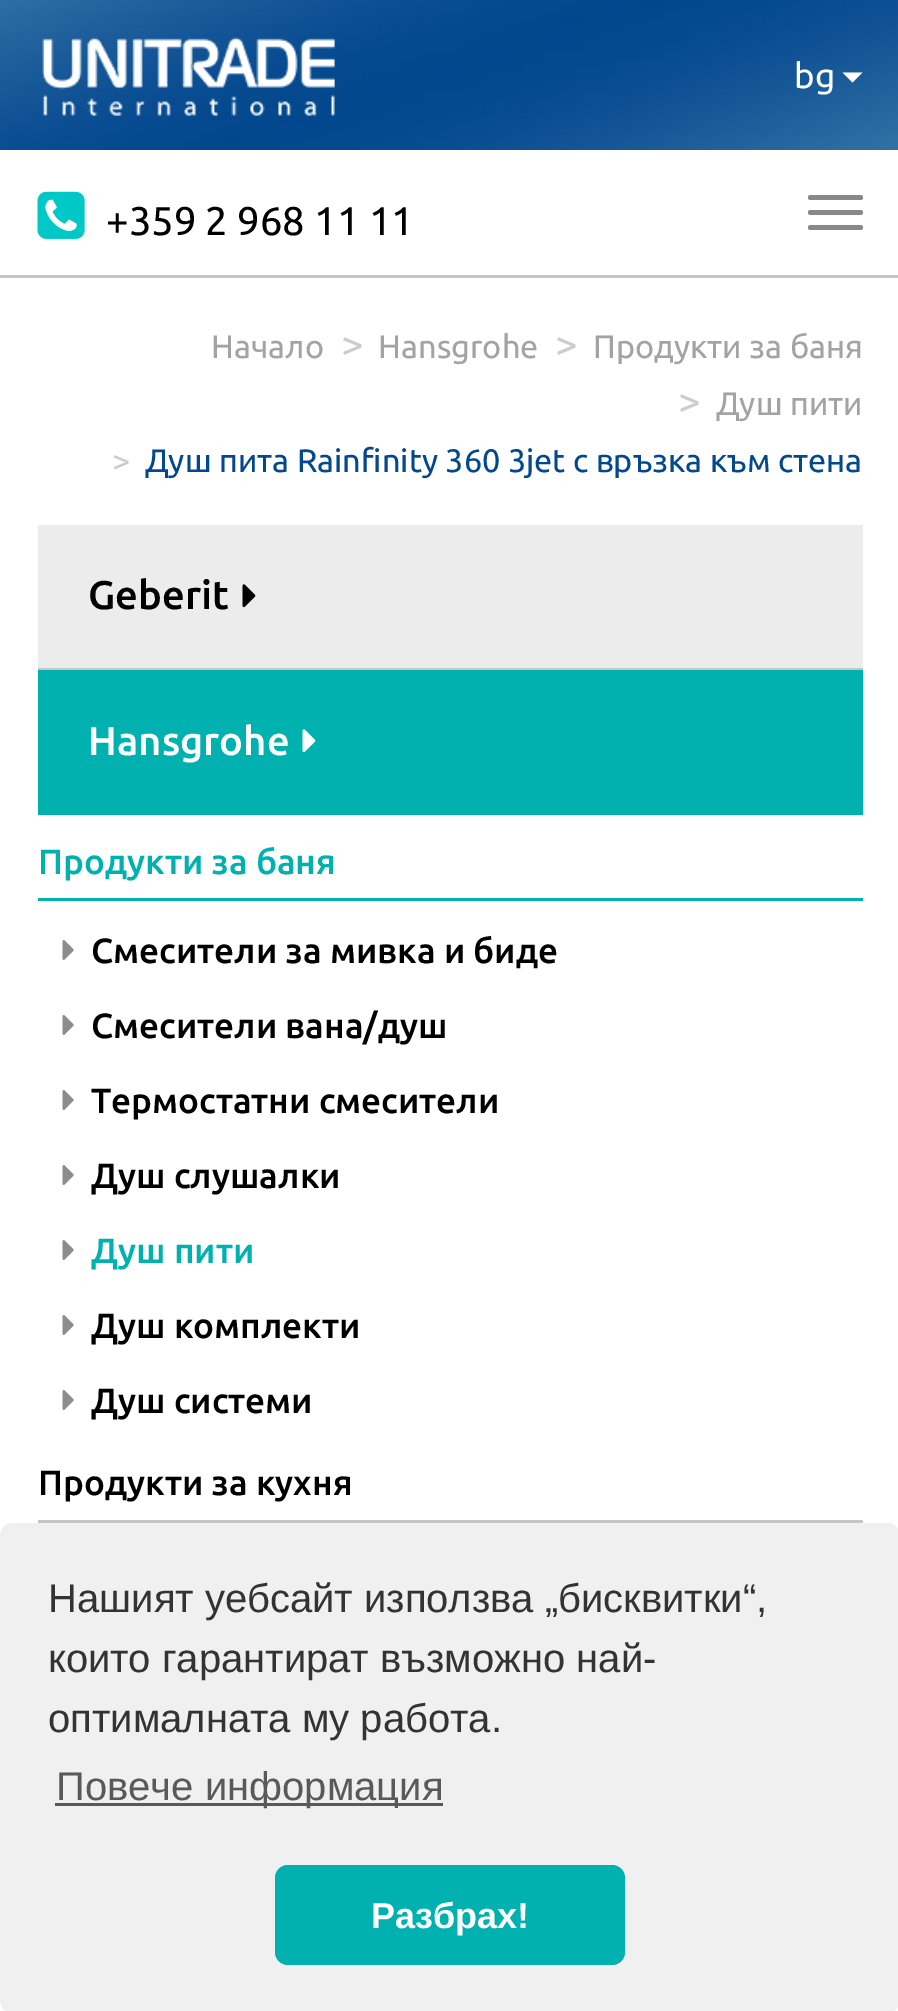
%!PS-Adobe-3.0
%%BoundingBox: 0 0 898 2011
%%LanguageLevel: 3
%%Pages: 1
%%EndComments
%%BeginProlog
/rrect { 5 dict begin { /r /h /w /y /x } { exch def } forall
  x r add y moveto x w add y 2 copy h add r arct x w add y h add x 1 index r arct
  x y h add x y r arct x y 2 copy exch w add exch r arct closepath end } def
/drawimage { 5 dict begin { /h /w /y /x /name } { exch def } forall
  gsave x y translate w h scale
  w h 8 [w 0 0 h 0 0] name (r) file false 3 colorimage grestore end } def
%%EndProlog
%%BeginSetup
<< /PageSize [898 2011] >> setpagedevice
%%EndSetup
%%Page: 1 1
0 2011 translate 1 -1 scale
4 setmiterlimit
1 setgray
0 0 898 2011 rectfill
(images/1.raw) 0 0 898 150 drawimage
(images/2.raw) 42 37 293 79 drawimage
newpath 842.5 72.5 moveto 862.5 72.5 lineto 852.5 82.5 lineto closepath fill
0.773 setgray
0 275 898 3 rectfill
(images/3.raw) 37 191 48 48 drawimage
0.533 setgray
808 195 55 5 2.5 rrect fill
808 210 55 5 2.5 rrect fill
808 225 55 5 2.5 rrect fill
0.925 setgray
38 525 825 143 rectfill
0.773 setgray
38 668 825 2 rectfill
(images/4.raw) 242 584 14 24 drawimage
0.004 0.694 0.686 setrgbcolor
38 670 825 145 rectfill
(images/5.raw) 302 729 14 24 drawimage
38 898 825 3 rectfill
(images/6.raw) 62 940 12 20 drawimage
(images/6.raw) 62 1015 12 20 drawimage
(images/6.raw) 62 1090 12 20 drawimage
(images/6.raw) 62 1165 12 20 drawimage
(images/6.raw) 62 1240 12 20 drawimage
(images/6.raw) 62 1315 12 20 drawimage
(images/6.raw) 62 1390 12 20 drawimage
0.773 setgray
38 1520 825 3 rectfill
0.941 setgray
0 1523 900 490 13 rrect fill
0.349 setgray
55 1803 388 3 rectfill
0.004 0.694 0.686 setrgbcolor
275 1865 350 100 13 rrect fill
/Ubuntu-Regular [35 0 0 -35 0 0] selectfont
1 setgray
794 88 moveto (bg) show
/Ubuntu-Regular [40 0 0 -40 0 0] selectfont
0 setgray
106 235 moveto (+359 2 968 11 11) show
/Ubuntu-Regular [32.5 0 0 -32.5 0 0] selectfont
0.639 setgray
211 358 moveto (Начало) show
/Ubuntu-Regular [40 0 0 -40 0 0] selectfont
0.8 setgray
341 358 moveto (>) show
/Ubuntu-Regular [32.5 0 0 -32.5 0 0] selectfont
0.639 setgray
378 358 moveto (Hansgrohe) show
/Ubuntu-Regular [40 0 0 -40 0 0] selectfont
0.8 setgray
555 358 moveto (>) show
/Ubuntu-Regular [32.5 0 0 -32.5 0 0] selectfont
0.639 setgray
593 358 moveto (Продукти за баня) show
/Ubuntu-Regular [40 0 0 -40 0 0] selectfont
0.8 setgray
678 415 moveto (>) show
/Ubuntu-Regular [32.5 0 0 -32.5 0 0] selectfont
0.639 setgray
716 415 moveto (Душ пити) show
0.8 setgray
112 472 moveto (>) show
0.008 0.282 0.557 setrgbcolor
145 472 moveto (Душ пита Rainfinity 360 3jet с връзка към стена) show
/Ubuntu-Medium [40 0 0 -40 0 0] selectfont
0 setgray
88 609 moveto (Geberit) show
1 setgray
88 755 moveto (Hansgrohe) show
/Ubuntu-Medium [35 0 0 -35 0 0] selectfont
0.004 0.694 0.686 setrgbcolor
38 874 moveto (Продукти за баня) show
0 setgray
91 963 moveto (Смесители за мивка и биде) show
91 1038 moveto (Смесители вана/душ) show
91 1113 moveto (Термостатни смесители) show
91 1188 moveto (Душ слушалки) show
0.004 0.694 0.686 setrgbcolor
91 1263 moveto (Душ пити) show
0 setgray
91 1338 moveto (Душ комплекти) show
91 1413 moveto (Душ системи) show
38 1495 moveto (Продукти за кухня) show
/LiberationSans-Regular [40 0 0 -40 0 0] selectfont
0.2 setgray
48 1612 moveto (Нашият уебсайт използва „бисквитки“,) show
48 1672 moveto (които гарантират възможно най-) show
48 1732 moveto (оптималната му работа.) show
0.349 setgray
56 1800 moveto (Повече информация) show
/LiberationSans-Bold [36 0 0 -36 0 0] selectfont
1 setgray
371 1928 moveto (Разбрах!) show
showpage
%%EOF
